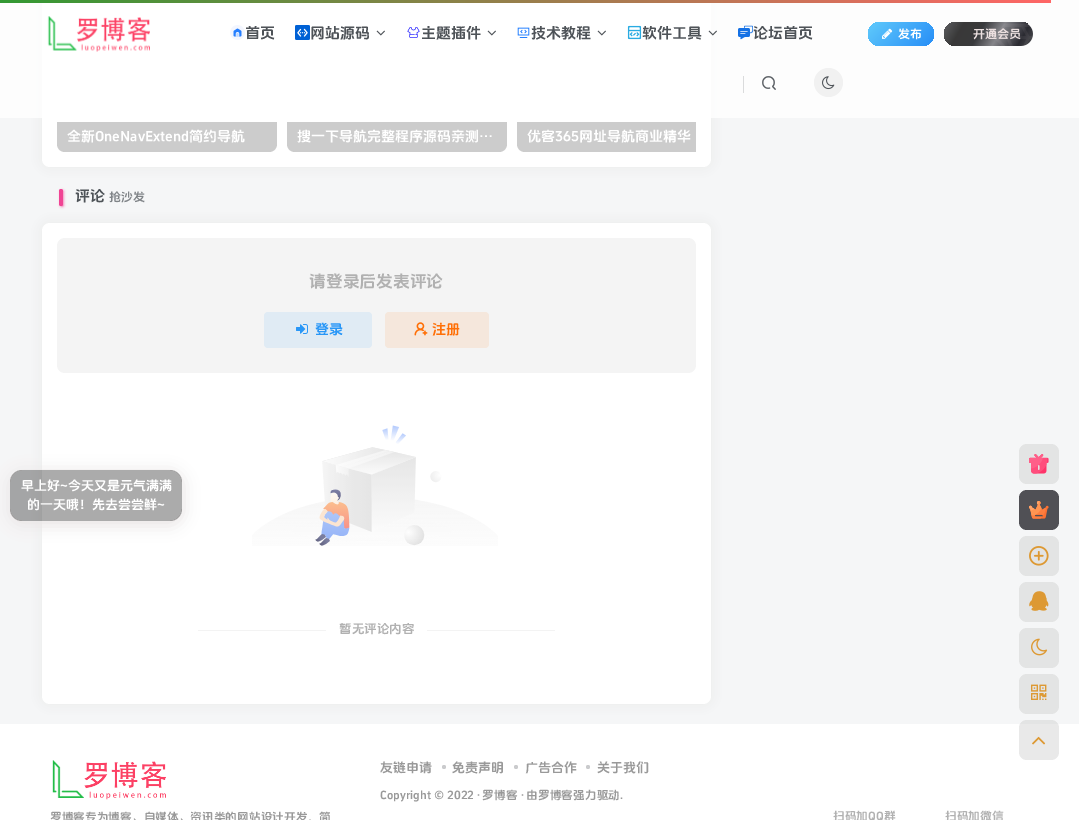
%!PS-Adobe-3.0
%%BoundingBox: 0 0 1079 820
%%LanguageLevel: 3
%%Pages: 1
%%EndComments
%%BeginProlog
/setalpha { dup .setfillconstantalpha .setstrokeconstantalpha } def
/rrect { 5 dict begin { /r /h /w /y /x } { exch def } forall
  x r add y moveto x w add y 2 copy h add r arct x w add y h add x 1 index r arct
  x y h add x y r arct x y 2 copy exch w add exch r arct closepath end } def
/softshadow { 12 dict begin { /a /b /q /h /w /y /x } { exch def } forall gsave /was 0 def
  9 -2 -9 { dup b mul 4 div /e exch def 1 sub .425 mul 2.718 exch exp 1 add a .99 .min exch div /now exch def
    1 1 now sub 1 was sub div sub setalpha /was now def
    w h .min e 2 mul add 0 gt { x e sub y e sub w e 2 mul add h e 2 mul add
      q e add b .6 mul add w h .min 2 div e add .min 0 .max rrect fill } if } for grestore end } def
/drawimage { 5 dict begin { /h /w /y /x /name } { exch def } forall
  gsave x y translate w h scale
  w h 8 [w 0 0 h 0 0] name (r) file false 3 colorimage grestore end } def
%%EndProlog
%%BeginSetup
<< /PageSize [1079 820] /PageUsesTransparency true >> setpagedevice
%%EndSetup
%%Page: 1 1
0 .pushpdf14devicefilter
0 820 translate 1 -1 scale
4 setmiterlimit
0.961 0.965 0.969 setrgbcolor
0 0 1079 820 rectfill
0.455 setgray
42 -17 669 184 8 5 0.08 softshadow
1 setgray
42 -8 669 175 8 rrect fill
0.8 setalpha
0 0 1079 118 rectfill
1 setalpha
gsave 0 0 1051 3 1.5 rrect clip newpath
<< /ShadingType 2 /ColorSpace /DeviceRGB /Coords [0 1.5 1051 1.5] /Extend [true true] /Function << /FunctionType 2 /Domain [0 1] /C0 [0.2 0.6 0.2] /C1 [1 0.4 0.4] /N 1 >> >> shfill grestore
(images/1.raw) 47 16 103 36 drawimage
(images/2.raw) 230 25 15 15 drawimage
(images/3.raw) 295 25 15 15 drawimage
(images/4.raw) 376 30 9 6 drawimage
(images/5.raw) 407 27 13 11 drawimage
(images/4.raw) 487 30 9 6 drawimage
(images/6.raw) 517 27 13 11 drawimage
(images/4.raw) 597 30 9 6 drawimage
(images/7.raw) 627 25 15 15 drawimage
(images/8.raw) 708 30 9 6 drawimage
(images/9.raw) 738 25 15 15 drawimage
gsave 868 22 66 24 12 rrect clip newpath
<< /ShadingType 2 /ColorSpace /DeviceRGB /Coords [879 12 924 57] /Extend [true true] /Function << /FunctionType 3 /Domain [0 1] /Functions [<< /FunctionType 2 /Domain [0 1] /C0 [0.349 0.765 0.984] /C1 [0.349 0.765 0.984] /N 1 >> << /FunctionType 2 /Domain [0 1] /C0 [0.349 0.765 0.984] /C1 [0.149 0.553 0.969] /N 1 >>] /Bounds [0.1] /Encode [0 1 0 1] >> >> shfill grestore
(images/10.raw) 882 28 11 11 drawimage
gsave 944 22 89 24 12 rrect clip newpath
<< /ShadingType 2 /ColorSpace /DeviceRGB /Coords [1027 56 950 12] /Extend [true true] /Function << /FunctionType 3 /Domain [0 1] /Functions [<< /FunctionType 2 /Domain [0 1] /C0 [0.298 0.302 0.318] /C1 [0.165 0.165 0.192] /N 1 >> << /FunctionType 2 /Domain [0 1] /C0 [0.165 0.165 0.192] /C1 [0.522 0.522 0.541] /N 1 >> << /FunctionType 2 /Domain [0 1] /C0 [0.522 0.522 0.541] /C1 [0.224 0.227 0.235] /N 1 >> << /FunctionType 2 /Domain [0 1] /C0 [0.224 0.227 0.235] /C1 [0.224 0.22 0.22] /N 1 >> << /FunctionType 2 /Domain [0 1] /C0 [0.224 0.22 0.22] /C1 [0.369 0.373 0.384] /N 1 >>] /Bounds [0.15 0.4 0.6 0.8] /Encode [0 1 0 1 0 1 0 1 0 1] >> >> shfill grestore
0.302 0.278 0.271 setrgbcolor
956 25 1 1 rectfill
0.855 0.859 0.863 setrgbcolor
743 76 1 17 rectfill
(images/12.raw) 762 76 14 14 drawimage
0.945 setgray
newpath 828.5 82.5 14.5 0 360 arc closepath fill
(images/13.raw) 822 76 13 14 drawimage
0.8 setgray
newpath 57 122 moveto 277 122 lineto 277 144 lineto 277 148.5 273.5 152 269 152 curveto 65 152 lineto 60.5 152 57 148.5 57 144 curveto closepath fill
newpath 287 122 moveto 507 122 lineto 507 144 lineto 507 148.5 503.5 152 499 152 curveto 295 152 lineto 290.5 152 287 148.5 287 144 curveto closepath fill
newpath 517 122 moveto 696 122 lineto 696 152 lineto 525 152 lineto 520.5 152 517 148.5 517 144 curveto closepath fill
0.941 0.267 0.58 setrgbcolor
61 191 2 15 1 1.5 1 softshadow
59 189 4 17 2 rrect fill
0.455 setgray
42 223 669 481 8 5 0.08 softshadow
1 setgray
42 223 669 481 8 rrect fill
0.957 setgray
57 238 639 135 8 rrect fill
0.878 0.922 0.957 setrgbcolor
264 312 108 36 4 rrect fill
(images/14.raw) 296 324 12 10 drawimage
0.961 0.906 0.863 setrgbcolor
385 312 104 36 4 rrect fill
(images/15.raw) 414 322 14 14 drawimage
(images/16.raw) 252 425 246 121 drawimage
0.953 setgray
198 630 128 1 rectfill
427 630 128 1 rectfill
0.89 0.894 0.894 setrgbcolor
1019 444 40 40 8 rrect fill
(images/17.raw) 1029 454 20 20 drawimage
0.314 0.314 0.333 setrgbcolor
1019 490 40 40 8 rrect fill
(images/18.raw) 1029 501 20 18 drawimage
0.89 0.894 0.894 setrgbcolor
1019 536 40 40 8 rrect fill
(images/19.raw) 1029 546 20 20 drawimage
1019 582 40 40 8 rrect fill
(images/20.raw) 1029 591 20 20 drawimage
1019 628 40 40 8 rrect fill
(images/21.raw) 1031 638 17 18 drawimage
1019 674 40 40 8 rrect fill
(images/22.raw) 1031 684 16 16 drawimage
1 setgray
0 724 1079 96 rectfill
0.4 setalpha
0.784 setgray
1019 720 40 40 8 rrect fill
1 setalpha
(images/23.raw) 1032 736 14 9 drawimage
gsave
newpath 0 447 moveto 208 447 lineto 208 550 lineto 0 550 lineto closepath 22 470 moveto 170 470 lineto 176.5 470 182 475.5 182 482 curveto 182 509 lineto 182 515.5 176.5 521 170 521 curveto 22 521 lineto 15.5 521 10 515.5 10 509 curveto 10 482 lineto 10 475.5 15.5 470 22 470 curveto closepath eoclip newpath
0.918 0.902 0.902 setrgbcolor
8 471 176 55 14 7.5 1 softshadow
grestore
0.33 setalpha
0 setgray
10 470 172 51 12 rrect fill
1 setalpha
0.792 0.796 0.804 setrgbcolor
newpath 444 767 2 0 360 arc closepath fill
newpath 516 767 2 0 360 arc closepath fill
newpath 588 767 2 0 360 arc closepath fill
(images/24.raw) 52 760 114 40 drawimage
/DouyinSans-Bold [15 0 0 -15 0 0] selectfont
0.306 0.325 0.345 setrgbcolor
245 38 moveto (首页) show
310 38 moveto (网站源码) show
421 38 moveto (主题插件) show
531 38 moveto (技术教程) show
642 38 moveto (软件工具) show
753 38 moveto (论坛首页) show
/DouyinSans-Bold [12 0 0 -12 0 0] selectfont
1 setgray
898 38 moveto (发布) show
0.925 0.878 0.878 setrgbcolor
973 38 moveto (开通会员) show
(images/11.raw) 995 24 38 22 drawimage
/DouyinSans-Bold [14 0 0 -14 0 0] selectfont
1 setgray
67 141 moveto (全新OneNavExtend简约导航) show
297 141 moveto (搜一下导航完整程序源码亲测…) show
527 141 moveto (优客365网址导航商业精华) show
/DouyinSans-Bold [15 0 0 -15 0 0] selectfont
0.306 0.325 0.345 setrgbcolor
75 201 moveto (评论) show
/DouyinSans-Bold [12 0 0 -12 0 0] selectfont
0.502 0.518 0.533 setrgbcolor
109 201 moveto (抢沙发) show
/DouyinSans-Bold [16.75 0 0 -16.75 0 0] selectfont
0.694 setgray
309 287 moveto (请登录后发表评论) show
/DouyinSans-Bold [14 0 0 -14 0 0] selectfont
0.161 0.592 0.969 setrgbcolor
315 334 moveto (登录) show
1 0.435 0.024 setrgbcolor
432 334 moveto (注册) show
/DouyinSans-Bold [12.5 0 0 -12.5 0 0] selectfont
0.694 setgray
339 633 moveto (暂无评论内容) show
/DouyinSans-Bold [13 0 0 -13 0 0] selectfont
1 setgray
21 490 moveto (早上好~今天又是元气满满) show
27 509 moveto (的一天哦！先去尝尝鲜~) show
0.6 setgray
380 772 moveto (友链申请) show
452 772 moveto (免责声明) show
525 772 moveto (广告合作) show
597 772 moveto (关于我们) show
/DouyinSans-Bold [11.7 0 0 -11.7 0 0] selectfont
380 799 moveto (Copyright © 2022 · 罗博客 · 由罗博客强力驱动.) show
50 821 moveto (罗博客专为博客、自媒体、资讯类的网站设计开发，简) show
0.694 setgray
833 820 moveto (扫码加QQ群) show
945 820 moveto (扫码加微信) show
.poppdf14devicefilter showpage
%%EOF
